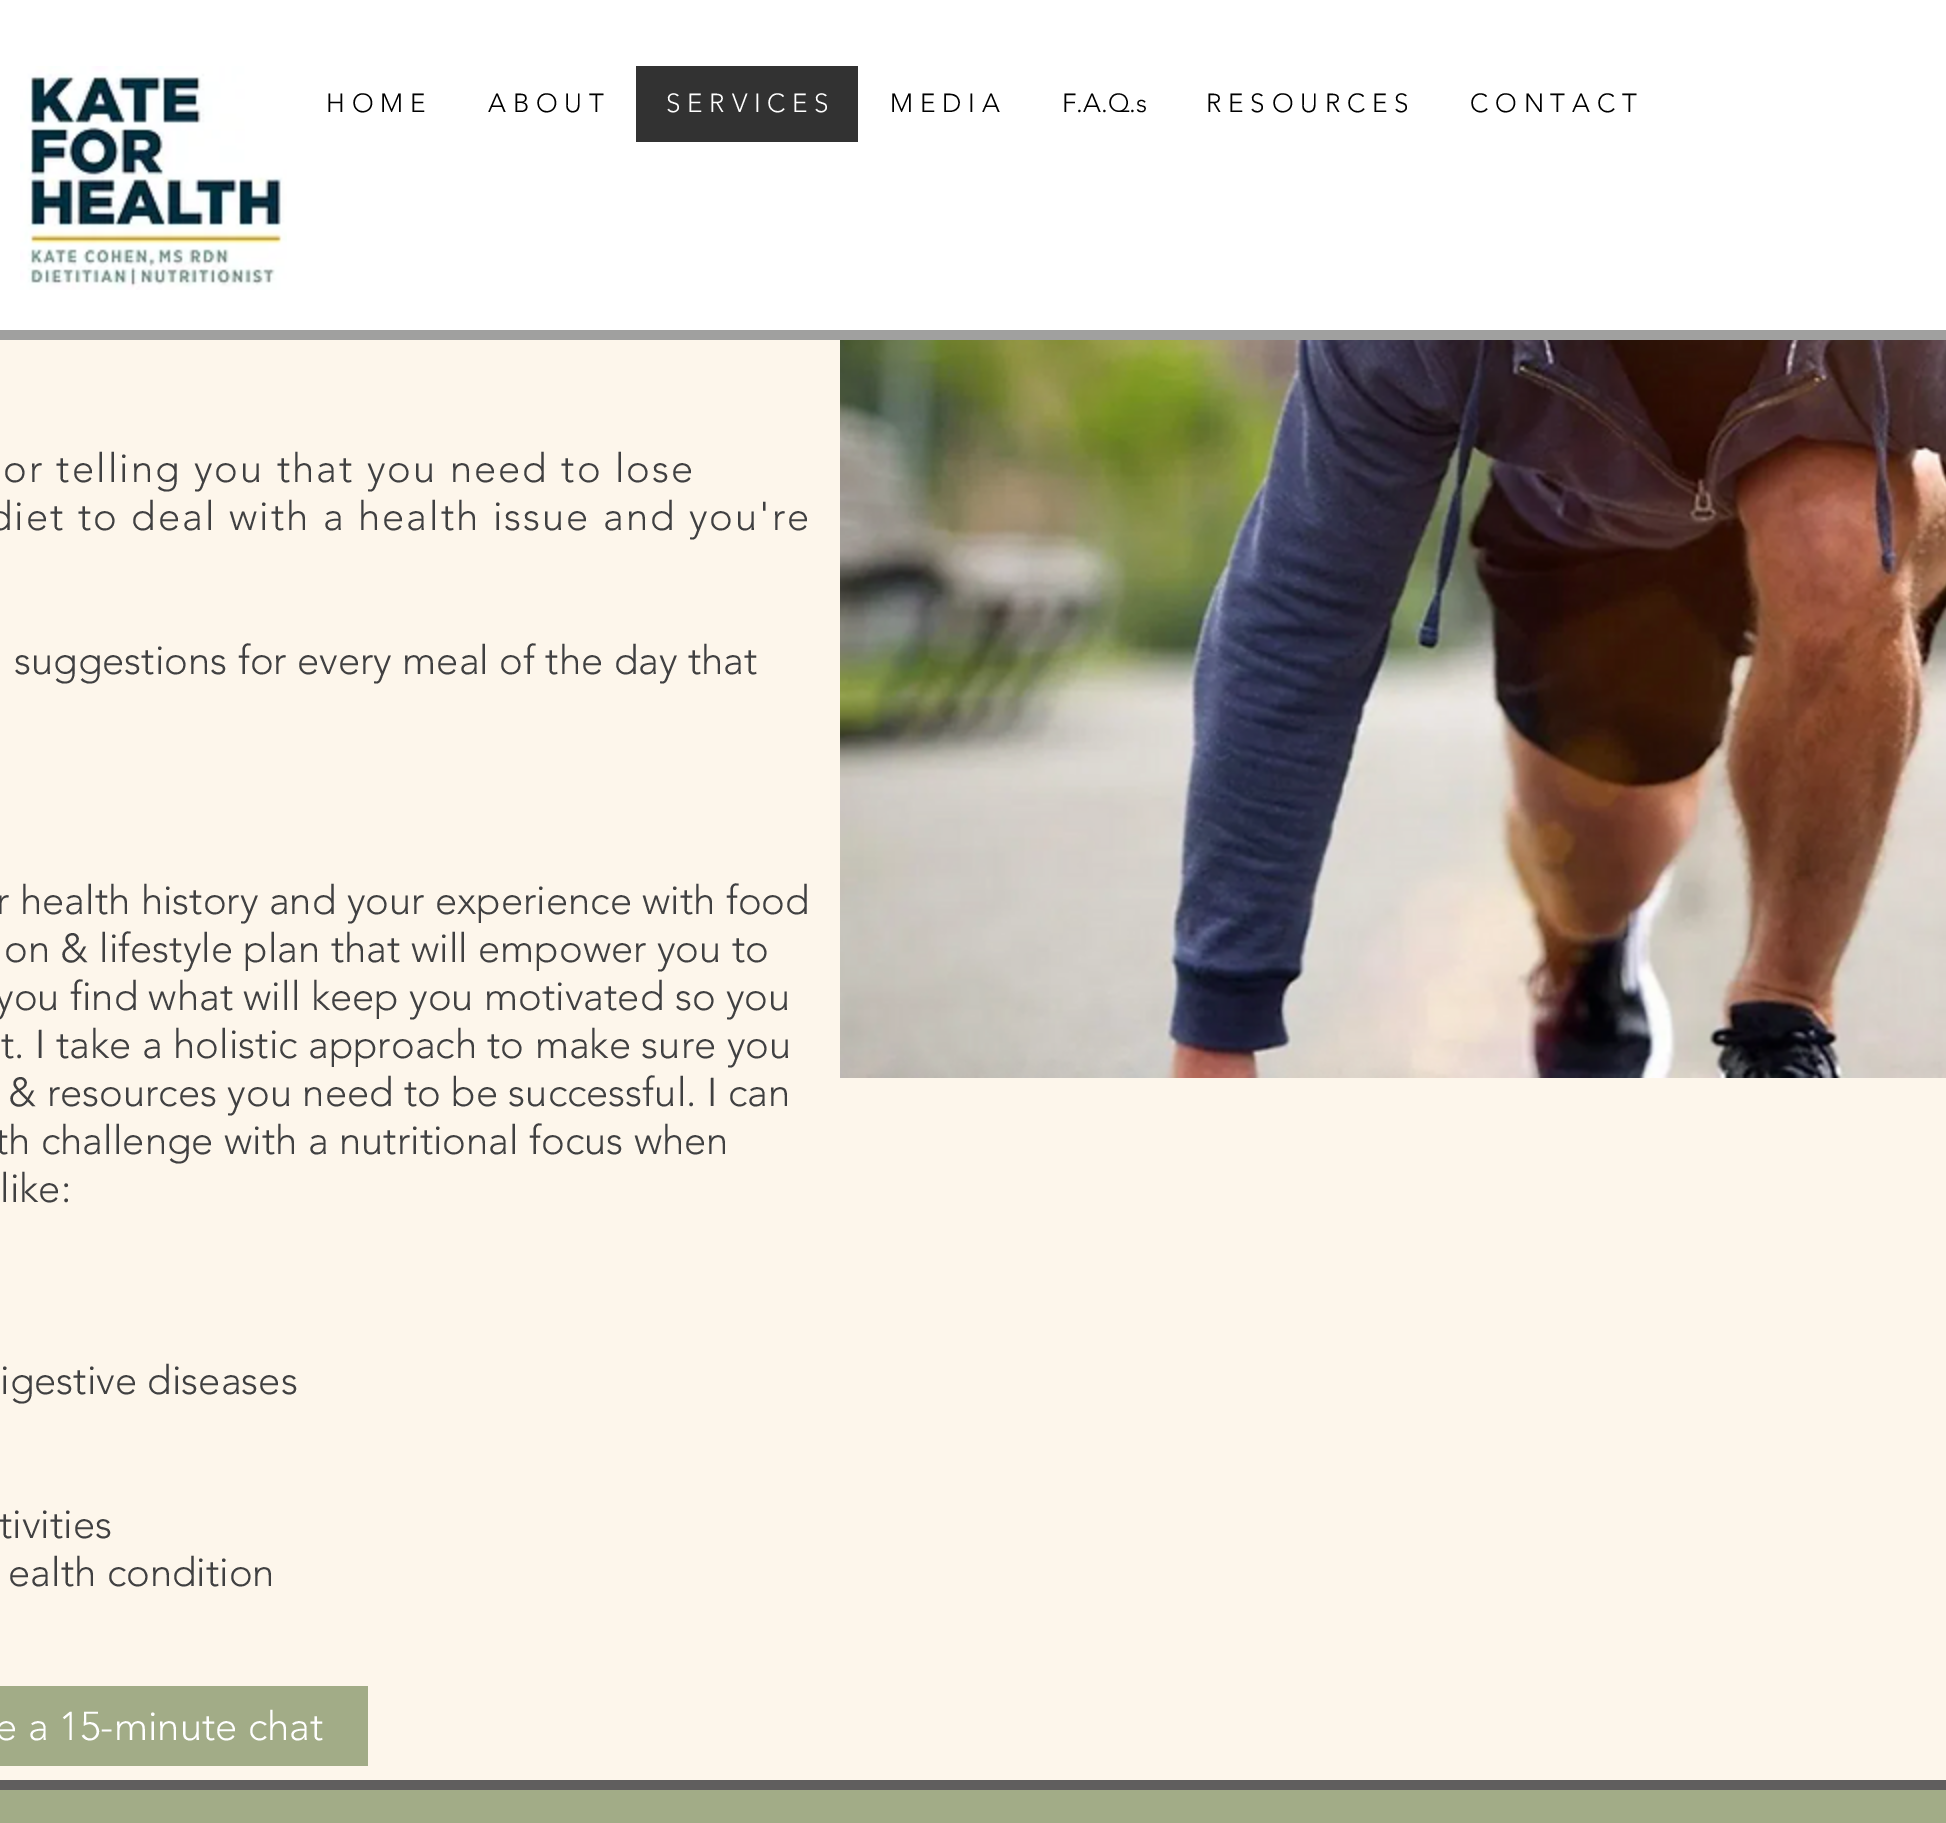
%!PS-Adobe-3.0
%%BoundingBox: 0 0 1946 1823
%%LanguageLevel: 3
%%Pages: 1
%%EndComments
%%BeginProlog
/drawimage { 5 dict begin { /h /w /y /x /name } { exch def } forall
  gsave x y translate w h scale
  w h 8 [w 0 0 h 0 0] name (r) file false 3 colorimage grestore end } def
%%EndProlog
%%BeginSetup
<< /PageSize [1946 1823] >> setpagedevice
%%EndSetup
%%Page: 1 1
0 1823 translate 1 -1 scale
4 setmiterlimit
0.992 0.965 0.922 setrgbcolor
0 0 1946 1823 rectfill
1 setgray
0 0 1946 330 rectfill
0.627 0.627 0.624 setrgbcolor
0 330 1946 10 rectfill
(images/1.raw) 20 66 267 224 drawimage
0.196 setgray
636 66 222 76 rectfill
(images/2.raw) 840 340 1106 738 drawimage
0.635 0.675 0.529 setrgbcolor
0 1686 368 80 rectfill
0 1790 1946 33 rectfill
0.376 0.369 0.369 setrgbcolor
0 1780 1946 10 rectfill
/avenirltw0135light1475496-Light [26 0 0 -26 0 0] selectfont
0 setgray
326 112 moveto (H O M E) show
488 112 moveto (A B O U T) show
1 setgray
666 112 moveto (S E R V I C E S) show
0 setgray
890 112 moveto (M E D I A) show
1062 112 moveto (F.A.Q.s) show
1206 112 moveto (R E S O U R C E S) show
1470 112 moveto (C O N T A C T) show
/avenirltw0135light1475496-Light [40 0 0 -40 0 0] selectfont
0.251 0.251 0.255 setrgbcolor
3 482 moveto 2 0 (or telling you that you need to lose) ashow
-12 530 moveto 2 0 (diet to deal with a health issue and you're) ashow
14 674 moveto (suggestions for every meal of the day that) show
-4 914 moveto (r health history and your experience with food) show
4 962 moveto (on & lifestyle plan that will empower you to) show
-5 1010 moveto (you find what will keep you motivated so you) show
1 1058 moveto (t. I take a holistic approach to make sure you) show
8 1106 moveto (& resources you need to be successful. I can) show
-5 1154 moveto (th challenge with a nutritional focus when) show
0 1202 moveto (like:) show
0 1394 moveto (igestive diseases) show
-1 1538 moveto (tivities) show
8 1586 moveto (ealth condition) show
1 setgray
-5 1740 moveto (e a 15-minute chat) show
showpage
%%EOF
